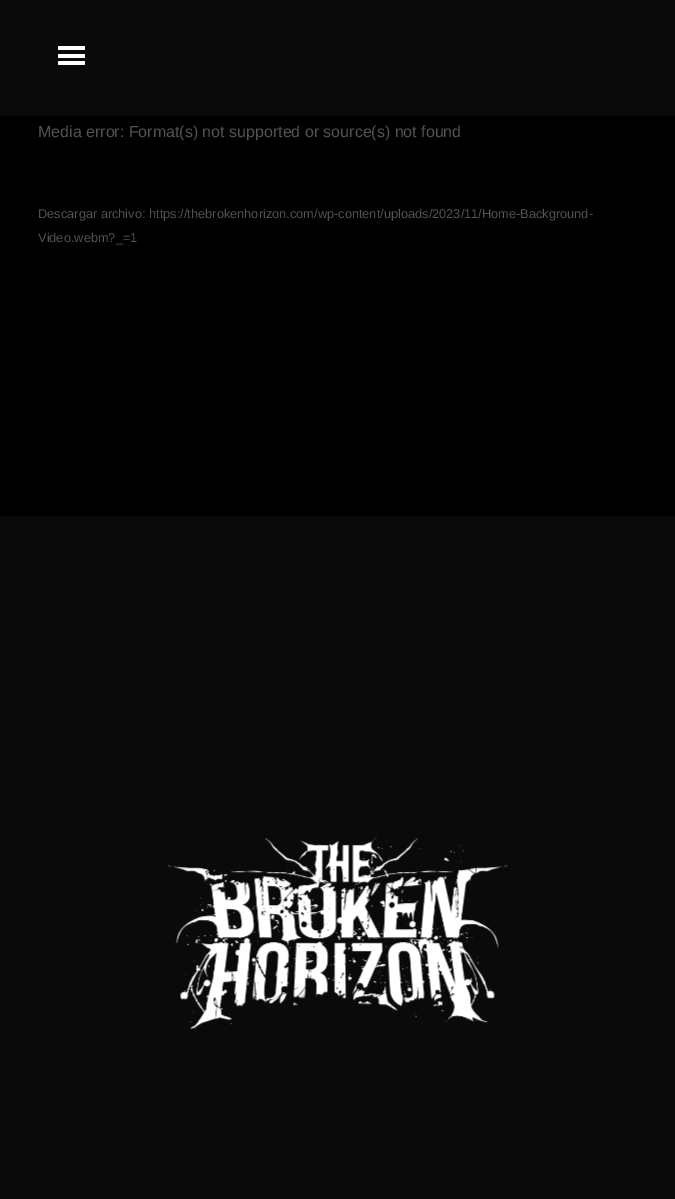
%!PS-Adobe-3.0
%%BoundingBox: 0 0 675 1199
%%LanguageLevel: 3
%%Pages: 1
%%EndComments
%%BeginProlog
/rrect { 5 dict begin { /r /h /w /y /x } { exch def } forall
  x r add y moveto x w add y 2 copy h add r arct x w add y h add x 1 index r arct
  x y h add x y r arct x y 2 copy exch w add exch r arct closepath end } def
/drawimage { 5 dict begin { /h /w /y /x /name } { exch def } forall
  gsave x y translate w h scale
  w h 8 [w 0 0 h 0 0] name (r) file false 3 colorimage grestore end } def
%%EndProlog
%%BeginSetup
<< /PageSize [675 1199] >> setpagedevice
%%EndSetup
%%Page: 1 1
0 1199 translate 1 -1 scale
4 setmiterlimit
0.039 setgray
0 0 675 1199 rectfill
1 setgray
58 46 27 4 1 rrect fill
58 54 27 4 1 rrect fill
58 61 27 4 1 rrect fill
(images/1.raw) 167 836 341 194 drawimage
0 setgray
0 116 675 400 rectfill
/LiberationSans-Regular [16 0 0 -16 0 0] selectfont
0.325 setgray
38 137 moveto (Media error: Format\(s\) not supported or source\(s\) not found) show
/LiberationSans-Regular [12.8 0 0 -12.8 0 0] selectfont
38 218 moveto (Descargar archivo: https://thebrokenhorizon.com/wp-content/uploads/2023/11/Home-Background-) show
38 242 moveto (Video.webm?_=1) show
showpage
%%EOF
